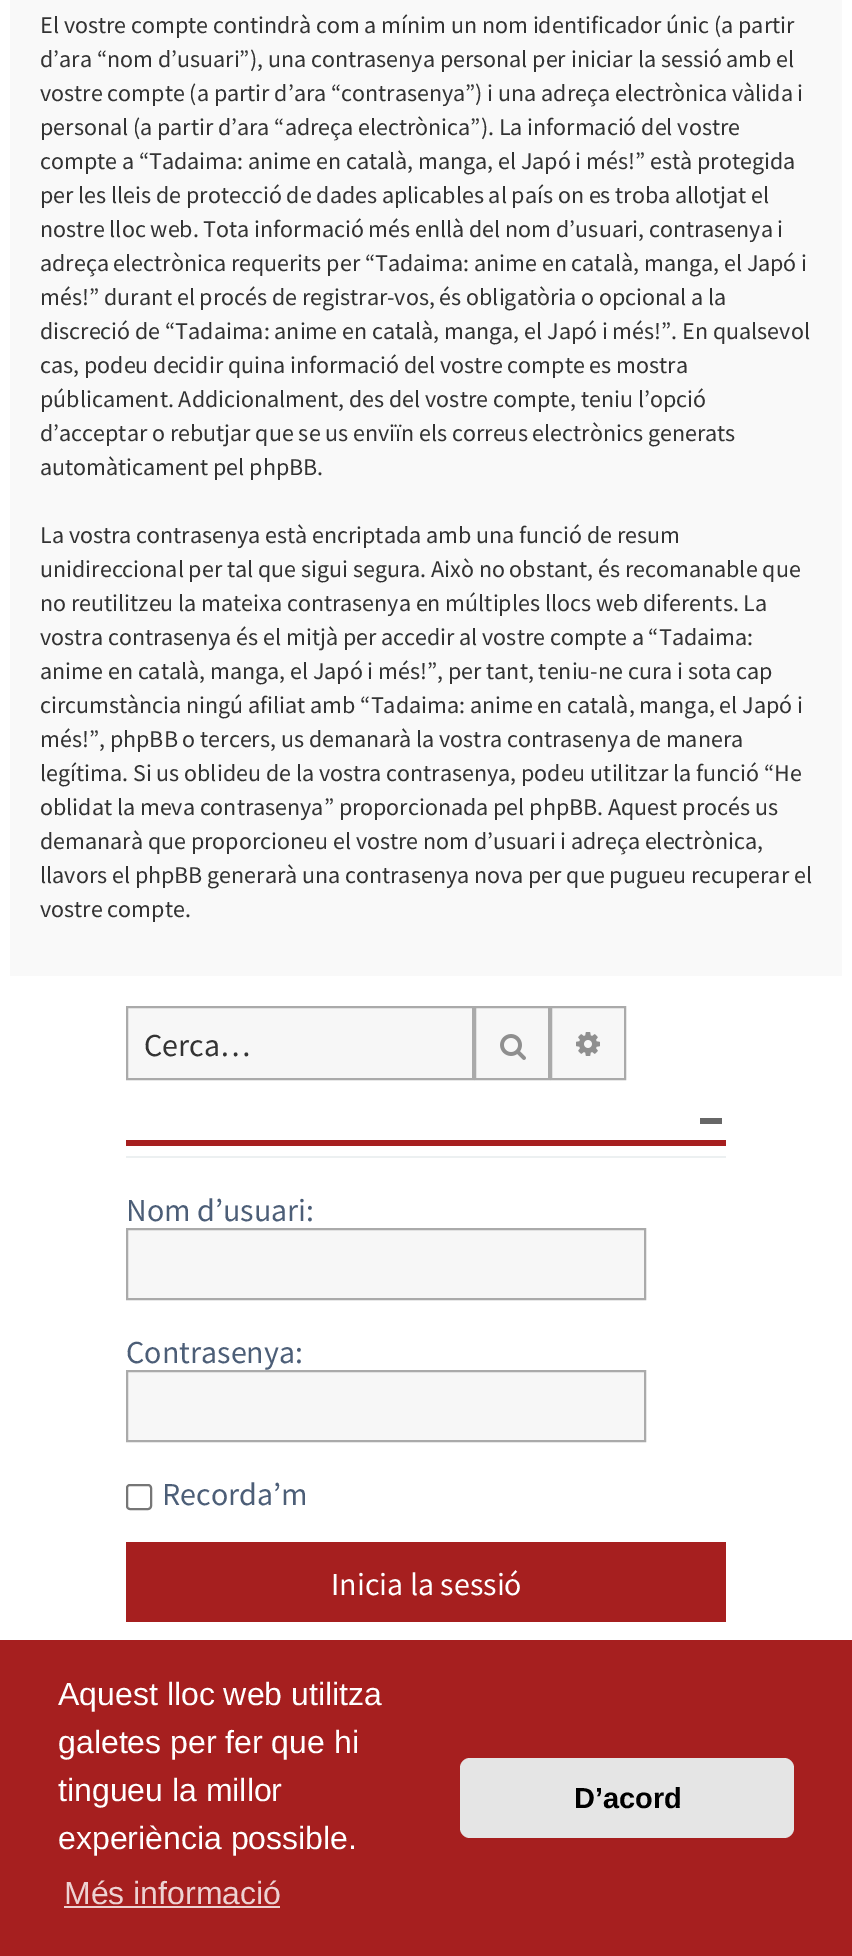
%!PS-Adobe-3.0
%%BoundingBox: 0 0 852 1956
%%LanguageLevel: 3
%%Pages: 1
%%EndComments
%%BeginProlog
/rrect { 5 dict begin { /r /h /w /y /x } { exch def } forall
  x r add y moveto x w add y 2 copy h add r arct x w add y h add x 1 index r arct
  x y h add x y r arct x y 2 copy exch w add exch r arct closepath end } def
/drawimage { 5 dict begin { /h /w /y /x /name } { exch def } forall
  gsave x y translate w h scale
  w h 8 [w 0 0 h 0 0] name (r) file false 3 colorimage grestore end } def
%%EndProlog
%%BeginSetup
<< /PageSize [852 1956] >> setpagedevice
%%EndSetup
%%Page: 1 1
0 1956 translate 1 -1 scale
4 setmiterlimit
1 setgray
0 0 852 1956 rectfill
0.976 setgray
10 0 832 976 rectfill
0.969 setgray
newpath 127 1007 moveto 473 1007 lineto 473 1079 lineto 127 1079 lineto closepath gsave fill grestore
0.667 setgray
2 setlinewidth
stroke
0.969 setgray
newpath 475 1007 moveto 549 1007 lineto 549 1079 lineto 475 1079 lineto closepath gsave fill grestore
0.667 setgray
stroke
(images/1.raw) 500 1034 26 26 drawimage
0.969 setgray
newpath 551 1007 moveto 625 1007 lineto 625 1079 lineto 551 1079 lineto closepath gsave fill grestore
0.667 setgray
stroke
(images/2.raw) 576 1032 24 24 drawimage
0.651 0.122 0.122 setrgbcolor
126 1140 600 6 rectfill
0.404 setgray
700 1118 22 6 rectfill
0.925 0.941 0.945 setrgbcolor
126 1156 600 2 rectfill
0.969 setgray
newpath 127 1229 moveto 645 1229 lineto 645 1299 lineto 127 1299 lineto closepath gsave fill grestore
0.667 setgray
stroke
0.969 setgray
newpath 127 1371 moveto 645 1371 lineto 645 1441 lineto 127 1441 lineto closepath gsave fill grestore
0.667 setgray
stroke
0.463 setgray
127 1485 24 24 3 rrect stroke
0.651 0.122 0.122 setrgbcolor
126 1542 600 80 rectfill
0 1640 852 316 rectfill
0.929 0.824 0.824 setrgbcolor
64 1906 216 2 rectfill
0.898 setgray
460 1758 334 80 10 rrect fill
/SourceSansPro-Regular [24 0 0 -24 0 0] selectfont
0.2 setgray
40 33 moveto (El vostre compte contindrà com a mínim un nom identificador únic \(a partir) show
40 67 moveto (d’ara “nom d’usuari”\), una contrasenya personal per iniciar la sessió amb el) show
40 101 moveto (vostre compte \(a partir d’ara “contrasenya”\) i una adreça electrònica vàlida i) show
40 135 moveto (personal \(a partir d’ara “adreça electrònica”\). La informació del vostre) show
40 169 moveto (compte a “Tadaima: anime en català, manga, el Japó i més!” està protegida) show
40 203 moveto (per les lleis de protecció de dades aplicables al país on es troba allotjat el) show
40 237 moveto (nostre lloc web. Tota informació més enllà del nom d’usuari, contrasenya i) show
40 271 moveto (adreça electrònica requerits per “Tadaima: anime en català, manga, el Japó i) show
40 305 moveto (més!” durant el procés de registrar-vos, és obligatòria o opcional a la) show
40 339 moveto (discreció de “Tadaima: anime en català, manga, el Japó i més!”. En qualsevol) show
40 373 moveto (cas, podeu decidir quina informació del vostre compte es mostra) show
40 407 moveto (públicament. Addicionalment, des del vostre compte, teniu l’opció) show
40 441 moveto (d’acceptar o rebutjar que se us enviïn els correus electrònics generats) show
40 475 moveto (automàticament pel phpBB.) show
40 543 moveto (La vostra contrasenya està encriptada amb una funció de resum) show
40 577 moveto (unidireccional per tal que sigui segura. Això no obstant, és recomanable que) show
40 611 moveto (no reutilitzeu la mateixa contrasenya en múltiples llocs web diferents. La) show
40 645 moveto (vostra contrasenya és el mitjà per accedir al vostre compte a “Tadaima:) show
40 679 moveto (anime en català, manga, el Japó i més!”, per tant, teniu-ne cura i sota cap) show
40 713 moveto (circumstància ningú afiliat amb “Tadaima: anime en català, manga, el Japó i) show
40 747 moveto (més!”, phpBB o tercers, us demanarà la vostra contrasenya de manera) show
40 781 moveto (legítima. Si us oblideu de la vostra contrasenya, podeu utilitzar la funció “He) show
40 815 moveto (oblidat la meva contrasenya” proporcionada pel phpBB. Aquest procés us) show
40 849 moveto (demanarà que proporcioneu el vostre nom d’usuari i adreça electrònica,) show
40 883 moveto (llavors el phpBB generarà una contrasenya nova per que pugueu recuperar el) show
40 917 moveto (vostre compte.) show
/SourceSansPro-Regular [32 0 0 -32 0 0] selectfont
144 1056 moveto (Cerca…) show
0.298 0.369 0.467 setrgbcolor
126 1221 moveto (Nom d’usuari:) show
126 1363 moveto (Contrasenya:) show
162 1505 moveto (Recorda’m) show
1 setgray
331 1595 moveto (Inicia la sessió) show
/LiberationSans-Regular [32 0 0 -32 0 0] selectfont
58 1705 moveto (Aquest lloc web utilitza) show
58 1753 moveto (galetes per fer que hi) show
58 1801 moveto (tingueu la millor) show
58 1849 moveto (experiència possible.) show
0.929 0.824 0.824 setrgbcolor
64 1904 moveto (Més informació) show
/LiberationSans-Bold [29 0 0 -29 0 0] selectfont
0 setgray
574 1808 moveto (D’acord) show
showpage
%%EOF
